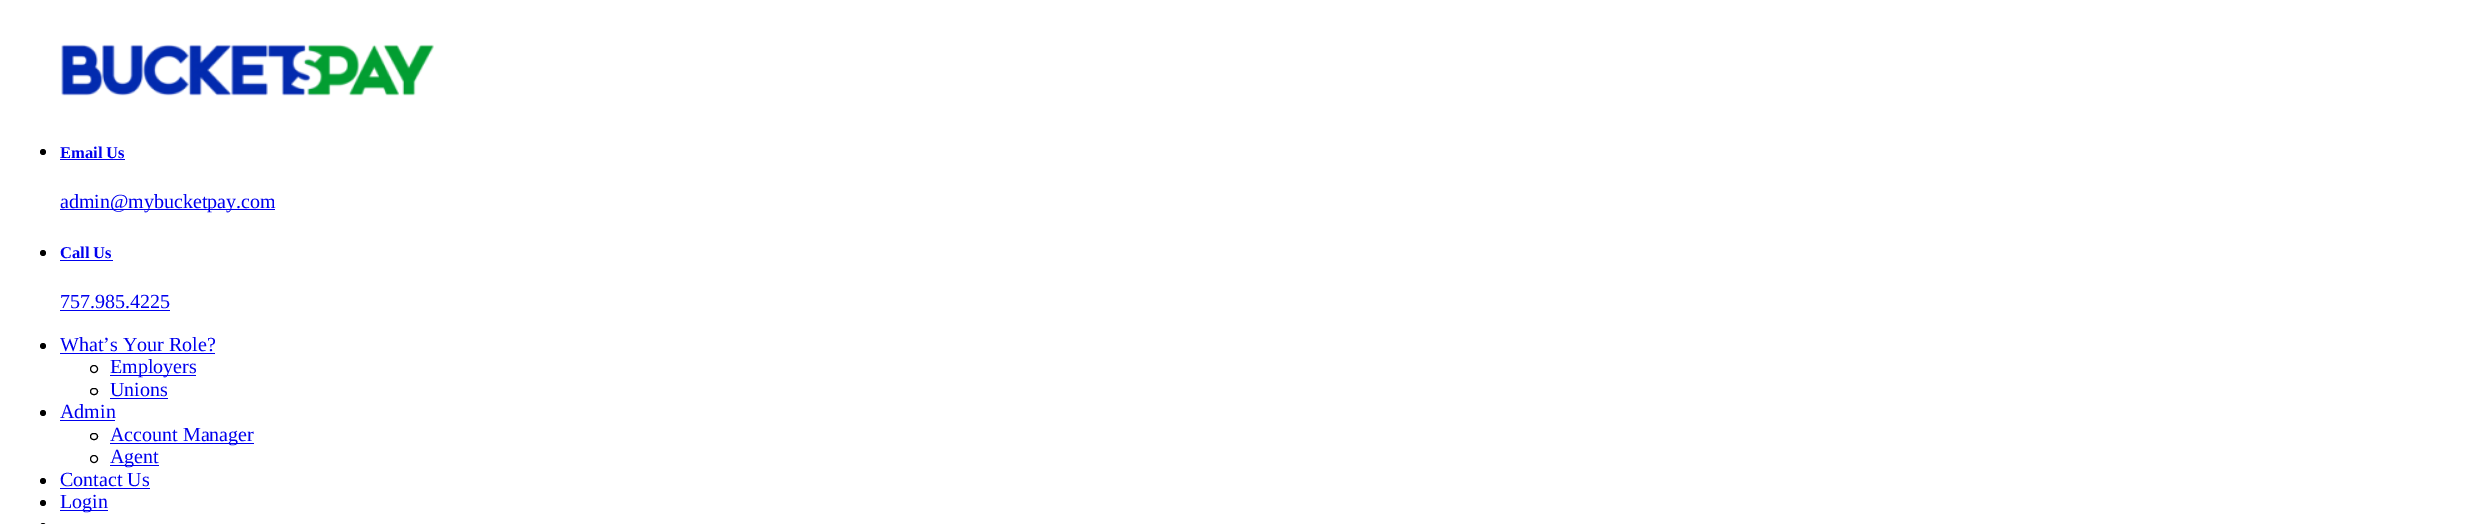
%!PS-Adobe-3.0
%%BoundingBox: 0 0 2472 524
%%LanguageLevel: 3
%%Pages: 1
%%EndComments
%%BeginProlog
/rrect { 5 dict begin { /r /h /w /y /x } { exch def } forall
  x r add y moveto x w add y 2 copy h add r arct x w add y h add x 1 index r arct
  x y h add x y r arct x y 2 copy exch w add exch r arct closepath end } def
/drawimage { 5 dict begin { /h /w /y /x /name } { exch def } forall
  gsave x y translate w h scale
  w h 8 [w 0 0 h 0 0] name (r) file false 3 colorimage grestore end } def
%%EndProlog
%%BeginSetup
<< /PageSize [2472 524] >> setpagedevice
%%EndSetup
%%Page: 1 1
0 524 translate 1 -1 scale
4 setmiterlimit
1 setgray
0 0 2472 524 rectfill
(images/1.raw) 61 44 373 52 drawimage
0 setgray
newpath 43 152 3 0 360 arc closepath fill
0 0 0.933 setrgbcolor
60 159 65 1 rectfill
60 209 215 1 rectfill
0 setgray
newpath 43 253 3 0 360 arc closepath fill
0 0 0.933 setrgbcolor
60 260 53 1 rectfill
60 310 110 1 rectfill
0 setgray
newpath 43 346 3 0 360 arc closepath fill
0 0 0.933 setrgbcolor
60 353 155 1 rectfill
0 setgray
newpath 94 369 3.5 0 360 arc closepath stroke
0 0 0.933 setrgbcolor
110 375 86 1 rectfill
0 setgray
90.5 388.5 7 6 3 rrect stroke
0 0 0.933 setrgbcolor
110 398 58 1 rectfill
0 setgray
newpath 43 413 3 0 360 arc closepath fill
0 0 0.933 setrgbcolor
60 420 55 1 rectfill
0 setgray
90.5 433.5 7 6 3 rrect stroke
0 0 0.933 setrgbcolor
110 443 144 1 rectfill
0 setgray
newpath 94 459 3.5 0 360 arc closepath stroke
0 0 0.933 setrgbcolor
110 465 49 1 rectfill
0 setgray
newpath 43 481 3 0 360 arc closepath fill
0 0 0.933 setrgbcolor
60 488 90 1 rectfill
0 setgray
newpath 43 503 3 0 360 arc closepath fill
0 0 0.933 setrgbcolor
60 510 48 1 rectfill
0 setgray
40 523 6 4 3 rrect fill
/LiberationSerif-Bold [16.5 0 0 -16.5 0 0] selectfont
0 0 0.933 setrgbcolor
60 158 moveto (Email Us) show
/LiberationSerif-Regular [20 0 0 -20 0 0] selectfont
60 208 moveto (admin@mybucketpay.com) show
/LiberationSerif-Bold [16.5 0 0 -16.5 0 0] selectfont
60 258 moveto (Call Us) show
/LiberationSerif-Regular [20 0 0 -20 0 0] selectfont
60 308 moveto (757.985.4225) show
60 351 moveto (What’s Your Role?) show
110 373 moveto (Employers) show
110 396 moveto (Unions) show
60 418 moveto (Admin) show
110 441 moveto (Account Manager) show
110 463 moveto (Agent) show
60 486 moveto (Contact Us) show
60 508 moveto (Login) show
showpage
%%EOF
